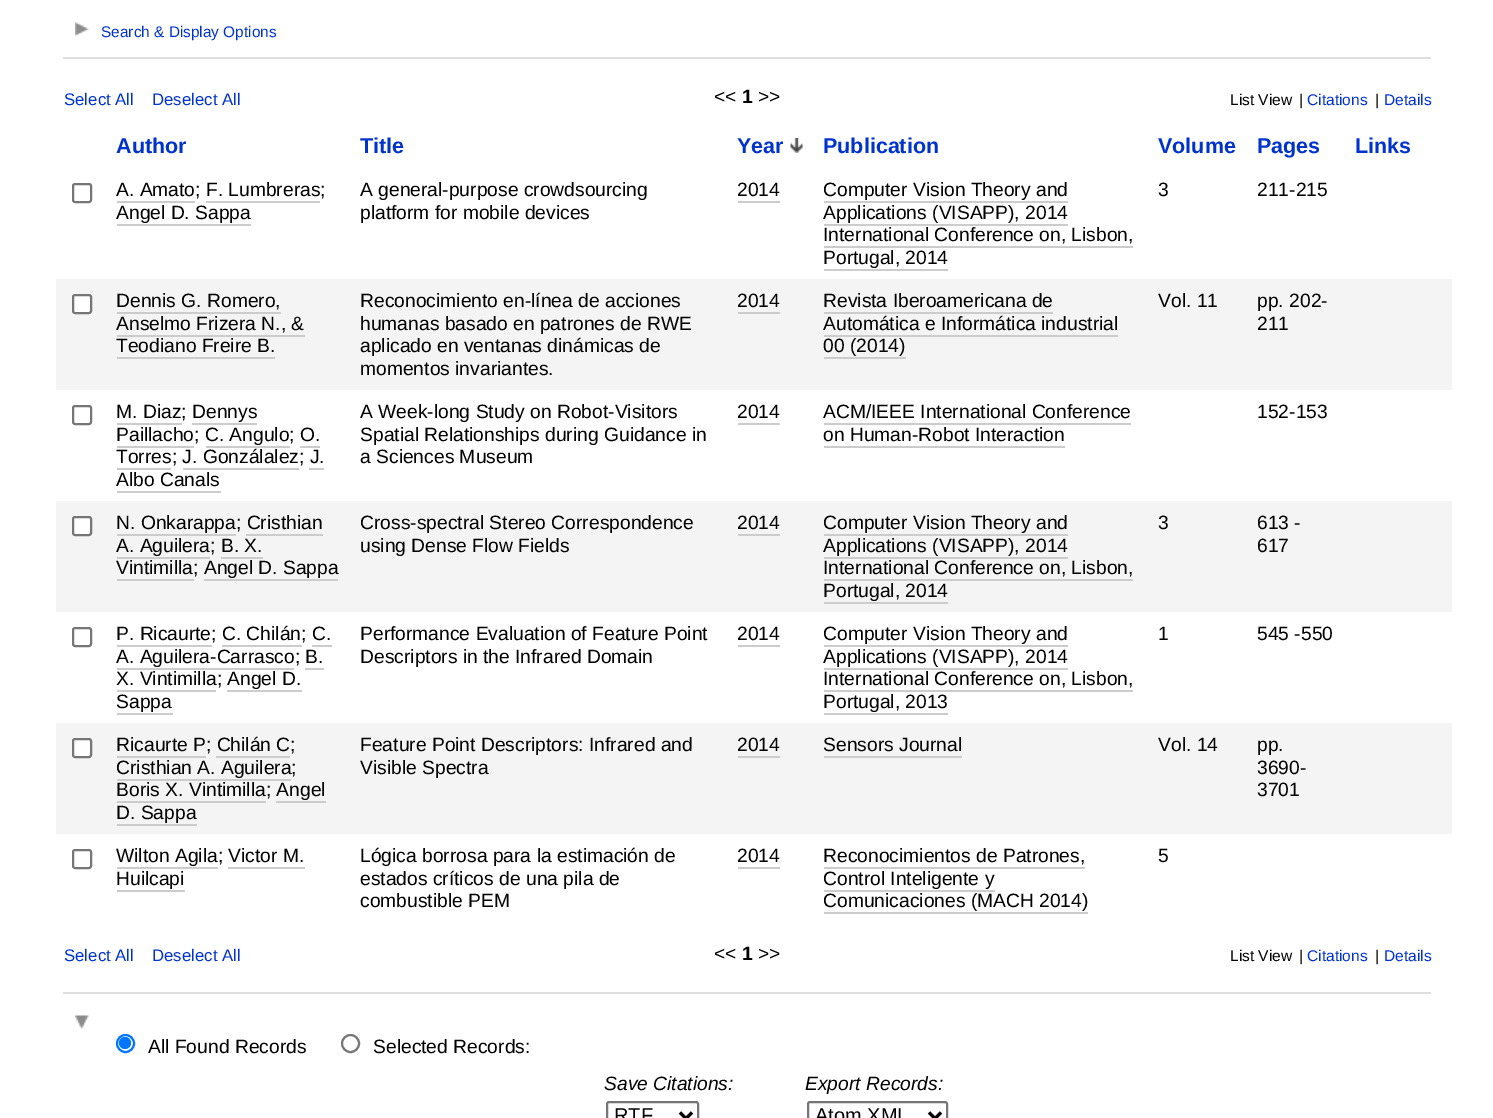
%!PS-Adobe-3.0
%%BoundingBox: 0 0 1493 1118
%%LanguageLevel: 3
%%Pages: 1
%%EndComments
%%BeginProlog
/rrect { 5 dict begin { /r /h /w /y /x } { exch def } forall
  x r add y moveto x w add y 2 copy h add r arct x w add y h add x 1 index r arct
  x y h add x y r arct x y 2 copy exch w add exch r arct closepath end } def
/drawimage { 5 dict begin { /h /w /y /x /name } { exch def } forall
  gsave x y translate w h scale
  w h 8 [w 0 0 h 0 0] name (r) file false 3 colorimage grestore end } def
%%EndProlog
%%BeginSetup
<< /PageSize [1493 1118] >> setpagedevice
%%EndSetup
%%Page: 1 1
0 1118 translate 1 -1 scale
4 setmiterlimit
1 setgray
0 0 1493 1118 rectfill
(images/1.raw) 75 22 14 14 drawimage
0.871 setgray
63 57 1368 2 rectfill
(images/2.raw) 790 138 13 15 drawimage
0.463 setgray
2 setlinewidth
73 184 18 18 2 rrect stroke
0.8 setgray
117 201 78 2 rectfill
206 201 114 2 rectfill
117 224 134 2 rectfill
738 201 42 2 rectfill
824 201 244 2 rectfill
824 224 244 2 rectfill
824 246 309 2 rectfill
824 269 124 2 rectfill
0.957 setgray
56 279 1396 111 rectfill
1 setgray
73 295 18 18 2 rrect gsave fill grestore
0.463 setgray
stroke
0.8 setgray
117 312 164 2 rectfill
117 335 188 2 rectfill
117 357 158 2 rectfill
738 312 42 2 rectfill
824 312 229 2 rectfill
824 335 294 2 rectfill
824 357 82 2 rectfill
0.463 setgray
73 406 18 18 2 rrect stroke
0.8 setgray
117 423 65 2 rectfill
192 423 65 2 rectfill
117 446 77 2 rectfill
206 446 84 2 rectfill
300 446 20 2 rectfill
309 468 15 2 rectfill
117 468 54 2 rectfill
183 468 116 2 rectfill
117 491 104 2 rectfill
738 423 42 2 rectfill
824 423 307 2 rectfill
824 446 241 2 rectfill
0.957 setgray
56 501 1396 111 rectfill
1 setgray
73 517 18 18 2 rrect gsave fill grestore
0.463 setgray
stroke
0.8 setgray
117 534 119 2 rectfill
246 534 77 2 rectfill
117 557 93 2 rectfill
221 557 42 2 rectfill
117 579 77 2 rectfill
204 579 134 2 rectfill
738 534 42 2 rectfill
824 534 244 2 rectfill
824 557 244 2 rectfill
824 579 309 2 rectfill
824 602 124 2 rectfill
0.463 setgray
73 628 18 18 2 rrect stroke
0.8 setgray
117 645 95 2 rectfill
222 645 80 2 rectfill
312 645 20 2 rectfill
117 668 177 2 rectfill
305 668 19 2 rectfill
117 690 99 2 rectfill
227 690 75 2 rectfill
117 713 56 2 rectfill
738 645 42 2 rectfill
824 645 244 2 rectfill
824 668 244 2 rectfill
824 690 309 2 rectfill
824 713 124 2 rectfill
0.957 setgray
56 723 1396 111 rectfill
1 setgray
73 739 18 18 2 rrect gsave fill grestore
0.463 setgray
stroke
0.8 setgray
117 756 89 2 rectfill
216 756 74 2 rectfill
117 779 174 2 rectfill
117 801 149 2 rectfill
276 801 50 2 rectfill
117 824 80 2 rectfill
738 756 42 2 rectfill
824 756 138 2 rectfill
0.463 setgray
73 850 18 18 2 rrect stroke
0.8 setgray
117 867 101 2 rectfill
228 867 77 2 rectfill
117 890 68 2 rectfill
738 867 42 2 rectfill
824 867 261 2 rectfill
824 890 171 2 rectfill
824 912 264 2 rectfill
0.871 setgray
63 992 1368 2 rectfill
(images/3.raw) 75 1015 14 14 drawimage
0 0.459 1 setrgbcolor
newpath 125.5 1043.5 8.5 0 360 arc closepath stroke
newpath 125 1043 6 0 360 arc closepath fill
0.463 setgray
newpath 350.5 1043.5 8.5 0 360 arc closepath stroke
607 1102 91 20 2 rrect stroke
0 setgray
3 setlinewidth
newpath 680 1112.5 moveto 686 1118.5 lineto 692 1112.5 lineto stroke
0.463 setgray
2 setlinewidth
808 1102 139 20 2 rrect stroke
0 setgray
3 setlinewidth
newpath 929 1112.5 moveto 935 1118.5 lineto 941 1112.5 lineto stroke
/LiberationSans-Regular [15.4 0 0 -15.4 0 0] selectfont
0 0.2 0.8 setrgbcolor
101 37 moveto (Search & Display Options) show
/LiberationSans-Regular [16.75 0 0 -16.75 0 0] selectfont
64 105 moveto (Select All) show
152 105 moveto (Deselect All) show
/LiberationSans-Regular [19.25 0 0 -19.25 0 0] selectfont
0 setgray
714 103 moveto (<<) show
/LiberationSans-Bold [19.25 0 0 -19.25 0 0] selectfont
742 103 moveto (1) show
/LiberationSans-Regular [19.25 0 0 -19.25 0 0] selectfont
758 103 moveto (>>) show
/LiberationSans-Regular [15.5 0 0 -15.5 0 0] selectfont
1230 105 moveto (List View) show
1299 105 moveto (|) show
0 0.2 0.8 setrgbcolor
1307 105 moveto (Citations) show
0 setgray
1375 105 moveto (|) show
0 0.2 0.8 setrgbcolor
1384 105 moveto (Details) show
/LiberationSans-Bold [21.5 0 0 -21.5 0 0] selectfont
116 153 moveto (Author) show
360 153 moveto (Title) show
737 153 moveto (Year) show
823 153 moveto (Publication) show
1158 153 moveto (Volume) show
1257 153 moveto (Pages) show
1355 153 moveto (Links) show
/LiberationSans-Regular [19.25 0 0 -19.25 0 0] selectfont
0 setgray
116 196 moveto (A. Amato; F. Lumbreras;) show
116 219 moveto (Angel D. Sappa) show
360 196 moveto (A general-purpose crowdsourcing) show
360 219 moveto (platform for mobile devices) show
737 196 moveto (2014) show
823 196 moveto (Computer Vision Theory and) show
823 219 moveto (Applications \(VISAPP\), 2014) show
823 241 moveto (International Conference on, Lisbon,) show
823 264 moveto (Portugal, 2014) show
1158 196 moveto (3) show
1257 196 moveto (211-215) show
116 307 moveto (Dennis G. Romero,) show
116 330 moveto (Anselmo Frizera N., &) show
116 352 moveto (Teodiano Freire B.) show
360 307 moveto (Reconocimiento en-línea de acciones) show
360 330 moveto (humanas basado en patrones de RWE) show
360 352 moveto (aplicado en ventanas dinámicas de) show
360 375 moveto (momentos invariantes.) show
737 307 moveto (2014) show
823 307 moveto (Revista Iberoamericana de) show
823 330 moveto (Automática e Informática industrial) show
823 352 moveto (00 \(2014\)) show
1158 307 moveto (Vol. 11) show
1257 307 moveto (pp. 202-) show
1257 330 moveto (211) show
116 418 moveto (M. Diaz; Dennys) show
116 441 moveto (Paillacho; C. Angulo; O.) show
116 463 moveto (Torres; J. Gonzálalez; J.) show
116 486 moveto (Albo Canals) show
360 418 moveto (A Week-long Study on Robot-Visitors) show
360 441 moveto (Spatial Relationships during Guidance in) show
360 463 moveto (a Sciences Museum) show
737 418 moveto (2014) show
823 418 moveto (ACM/IEEE International Conference) show
823 441 moveto (on Human-Robot Interaction) show
1257 418 moveto (152-153) show
116 529 moveto (N. Onkarappa; Cristhian) show
116 552 moveto (A. Aguilera; B. X.) show
116 574 moveto (Vintimilla; Angel D. Sappa) show
360 529 moveto (Cross-spectral Stereo Correspondence) show
360 552 moveto (using Dense Flow Fields) show
737 529 moveto (2014) show
823 529 moveto (Computer Vision Theory and) show
823 552 moveto (Applications \(VISAPP\), 2014) show
823 574 moveto (International Conference on, Lisbon,) show
823 597 moveto (Portugal, 2014) show
1158 529 moveto (3) show
1257 529 moveto (613 -) show
1257 552 moveto (617) show
116 640 moveto (P. Ricaurte; C. Chilán; C.) show
116 663 moveto (A. Aguilera-Carrasco; B.) show
116 685 moveto (X. Vintimilla; Angel D.) show
116 708 moveto (Sappa) show
360 640 moveto (Performance Evaluation of Feature Point) show
360 663 moveto (Descriptors in the Infrared Domain) show
737 640 moveto (2014) show
823 640 moveto (Computer Vision Theory and) show
823 663 moveto (Applications \(VISAPP\), 2014) show
823 685 moveto (International Conference on, Lisbon,) show
823 708 moveto (Portugal, 2013) show
1158 640 moveto (1) show
1257 640 moveto (545 -550) show
116 751 moveto (Ricaurte P; Chilán C;) show
116 774 moveto (Cristhian A. Aguilera;) show
116 796 moveto (Boris X. Vintimilla; Angel) show
116 819 moveto (D. Sappa) show
360 751 moveto (Feature Point Descriptors: Infrared and) show
360 774 moveto (Visible Spectra) show
737 751 moveto (2014) show
823 751 moveto (Sensors Journal) show
1158 751 moveto (Vol. 14) show
1257 751 moveto (pp.) show
1257 774 moveto (3690-) show
1257 796 moveto (3701) show
116 862 moveto (Wilton Agila; Victor M.) show
116 885 moveto (Huilcapi) show
360 862 moveto (Lógica borrosa para la estimación de) show
360 885 moveto (estados críticos de una pila de) show
360 907 moveto (combustible PEM) show
737 862 moveto (2014) show
823 862 moveto (Reconocimientos de Patrones,) show
823 885 moveto (Control Inteligente y) show
823 907 moveto (Comunicaciones \(MACH 2014\)) show
1158 862 moveto (5) show
/LiberationSans-Regular [16.75 0 0 -16.75 0 0] selectfont
0 0.2 0.8 setrgbcolor
64 961 moveto (Select All) show
152 961 moveto (Deselect All) show
/LiberationSans-Regular [19.25 0 0 -19.25 0 0] selectfont
0 setgray
714 960 moveto (<<) show
/LiberationSans-Bold [19.25 0 0 -19.25 0 0] selectfont
742 960 moveto (1) show
/LiberationSans-Regular [19.25 0 0 -19.25 0 0] selectfont
758 960 moveto (>>) show
/LiberationSans-Regular [15.5 0 0 -15.5 0 0] selectfont
1230 961 moveto (List View) show
1299 961 moveto (|) show
0 0.2 0.8 setrgbcolor
1307 961 moveto (Citations) show
0 setgray
1375 961 moveto (|) show
0 0.2 0.8 setrgbcolor
1384 961 moveto (Details) show
/LiberationSans-Regular [19.25 0 0 -19.25 0 0] selectfont
0 setgray
148 1053 moveto (All Found Records) show
373 1053 moveto (Selected Records:) show
/LiberationSans-Italic [19.25 0 0 -19.25 0 0] selectfont
604 1090 moveto (Save Citations:) show
/LiberationSans-Regular [20 0 0 -20 0 0] selectfont
614 1122 moveto (RTF) show
/LiberationSans-Italic [19.25 0 0 -19.25 0 0] selectfont
805 1090 moveto (Export Records:) show
/LiberationSans-Regular [20 0 0 -20 0 0] selectfont
815 1122 moveto (Atom XML) show
showpage
%%EOF
